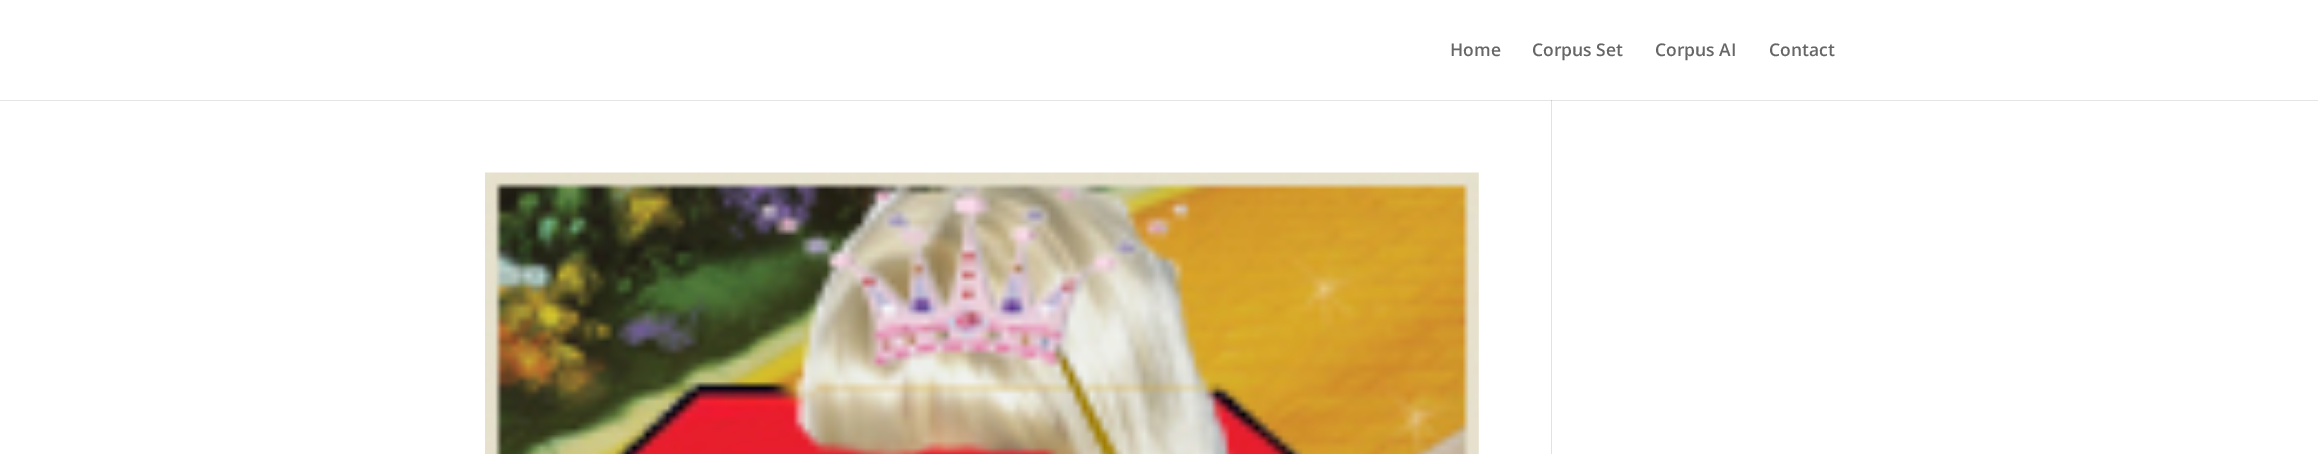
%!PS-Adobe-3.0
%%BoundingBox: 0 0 2318 454
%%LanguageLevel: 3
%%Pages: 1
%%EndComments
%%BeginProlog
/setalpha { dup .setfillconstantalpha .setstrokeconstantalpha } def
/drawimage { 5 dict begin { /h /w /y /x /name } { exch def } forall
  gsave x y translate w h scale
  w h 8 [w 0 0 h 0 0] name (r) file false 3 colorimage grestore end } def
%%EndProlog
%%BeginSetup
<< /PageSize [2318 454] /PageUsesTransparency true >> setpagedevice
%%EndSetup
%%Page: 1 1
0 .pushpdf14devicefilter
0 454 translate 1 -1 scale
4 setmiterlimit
1 setgray
0 0 2318 454 rectfill
0.886 setgray
1551 100 1 354 rectfill
0.1 setalpha
0 setgray
newpath 0 100 moveto 0 101 lineto 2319 101 lineto 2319 1 lineto 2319 100 lineto closepath fill
1 setalpha
(images/1.raw) 485 172 994 282 drawimage
/OpenSans-SemiBold [17.5 0 0 -17.5 0 0] selectfont
0.4 setgray
1450 56 moveto (Home) show
1532 56 moveto (Corpus Set) show
1655 56 moveto (Corpus AI) show
1769 56 moveto (Contact) show
.poppdf14devicefilter showpage
%%EOF
